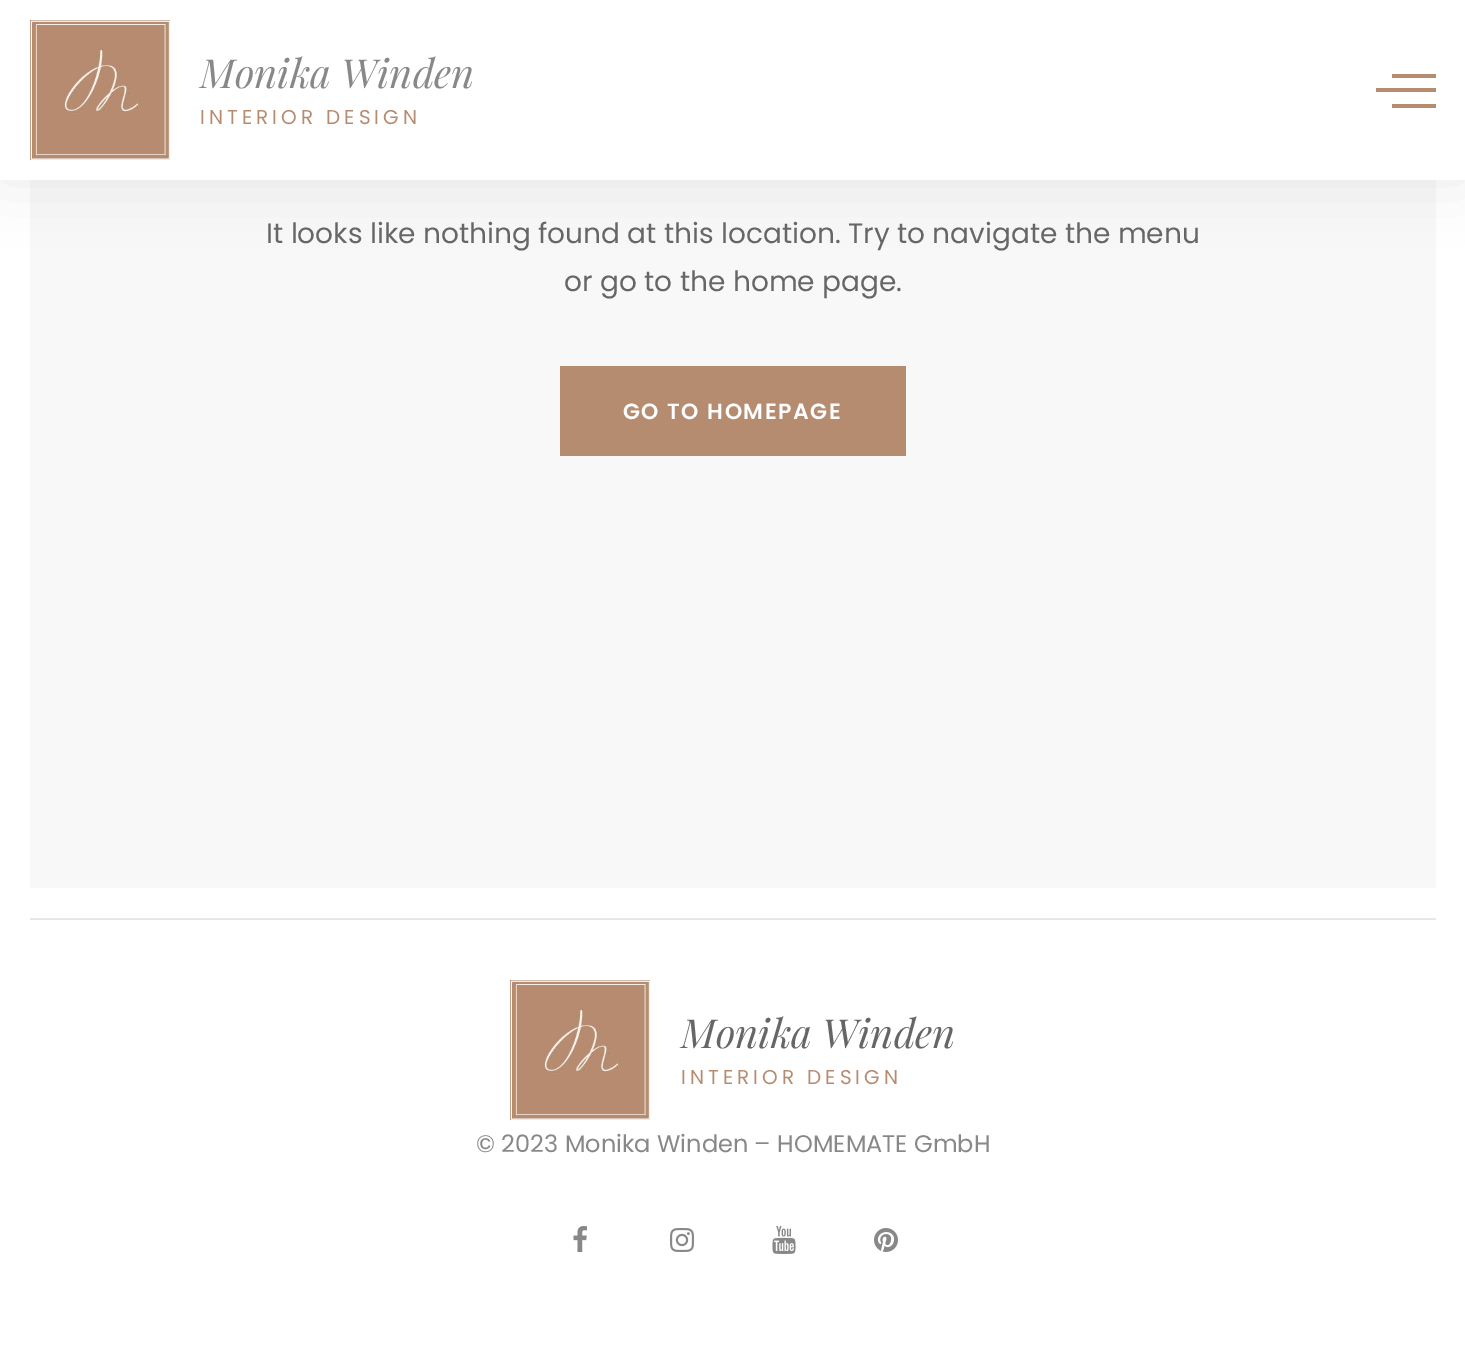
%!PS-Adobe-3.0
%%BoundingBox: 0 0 1465 1368
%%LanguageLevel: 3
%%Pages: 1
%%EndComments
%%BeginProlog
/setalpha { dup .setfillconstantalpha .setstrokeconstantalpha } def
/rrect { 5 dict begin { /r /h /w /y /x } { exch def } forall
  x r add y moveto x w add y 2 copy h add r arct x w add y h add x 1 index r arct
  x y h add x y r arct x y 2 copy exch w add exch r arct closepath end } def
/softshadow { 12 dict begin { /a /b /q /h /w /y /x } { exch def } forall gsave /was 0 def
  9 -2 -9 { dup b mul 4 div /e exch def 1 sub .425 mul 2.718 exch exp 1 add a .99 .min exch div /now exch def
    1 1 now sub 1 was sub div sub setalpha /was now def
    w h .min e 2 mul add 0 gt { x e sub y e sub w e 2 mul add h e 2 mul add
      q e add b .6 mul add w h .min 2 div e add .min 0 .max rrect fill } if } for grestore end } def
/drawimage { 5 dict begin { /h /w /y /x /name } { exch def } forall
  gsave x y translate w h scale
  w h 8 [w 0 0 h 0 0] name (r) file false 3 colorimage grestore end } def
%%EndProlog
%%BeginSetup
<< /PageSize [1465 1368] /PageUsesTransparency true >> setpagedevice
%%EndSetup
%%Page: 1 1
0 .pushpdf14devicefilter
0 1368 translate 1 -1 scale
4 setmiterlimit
1 setgray
0 0 1465 1368 rectfill
0.973 setgray
30 180 1406 708 rectfill
0.094 setgray
0 0 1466 180 0 30 0.08 softshadow
1 setgray
0 0 1465 180 rectfill
(images/1.raw) 30 20 140 140 drawimage
0.714 0.549 0.439 setrgbcolor
1392 74 44 4 rectfill
1376 88 60 4 rectfill
1392 104 44 4 rectfill
560 366 346 90 rectfill
0.906 setgray
30 918 1406 2 rectfill
(images/1.raw) 510 980 140 140 drawimage
(images/2.raw) 573 1226 14 26 drawimage
(images/3.raw) 670 1228 24 24 drawimage
(images/4.raw) 772 1226 24 28 drawimage
(images/5.raw) 874 1228 24 24 drawimage
/PlayfairDisplay-Italic [40 0 0 -40 0 0] selectfont
0.533 setgray
200 88 moveto (Monika Winden) show
/Poppins-Regular [20 0 0 -20 0 0] selectfont
0.714 0.549 0.439 setrgbcolor
200 124 moveto 4 0 (INTERIOR DESIGN) ashow
/Poppins-Regular [28 0 0 -28 0 0] selectfont
0.4 setgray
266 243 moveto (It looks like nothing found at this location. Try to navigate the menu) show
564 291 moveto (or go to the home page.) show
/Poppins-SemiBold [22 0 0 -22 0 0] selectfont
1 setgray
623 419 moveto 1.6 0 (GO TO HOMEPAGE) ashow
/PlayfairDisplay-Italic [40 0 0 -40 0 0] selectfont
0.4 setgray
681 1048 moveto (Monika Winden) show
/Poppins-Regular [20 0 0 -20 0 0] selectfont
0.714 0.549 0.439 setrgbcolor
681 1084 moveto 4 0 (INTERIOR DESIGN) ashow
/Poppins-Regular [24 0 0 -24 0 0] selectfont
0.533 setgray
476 1152 moveto (© 2023 Monika Winden – HOMEMATE GmbH) show
.poppdf14devicefilter showpage
%%EOF
